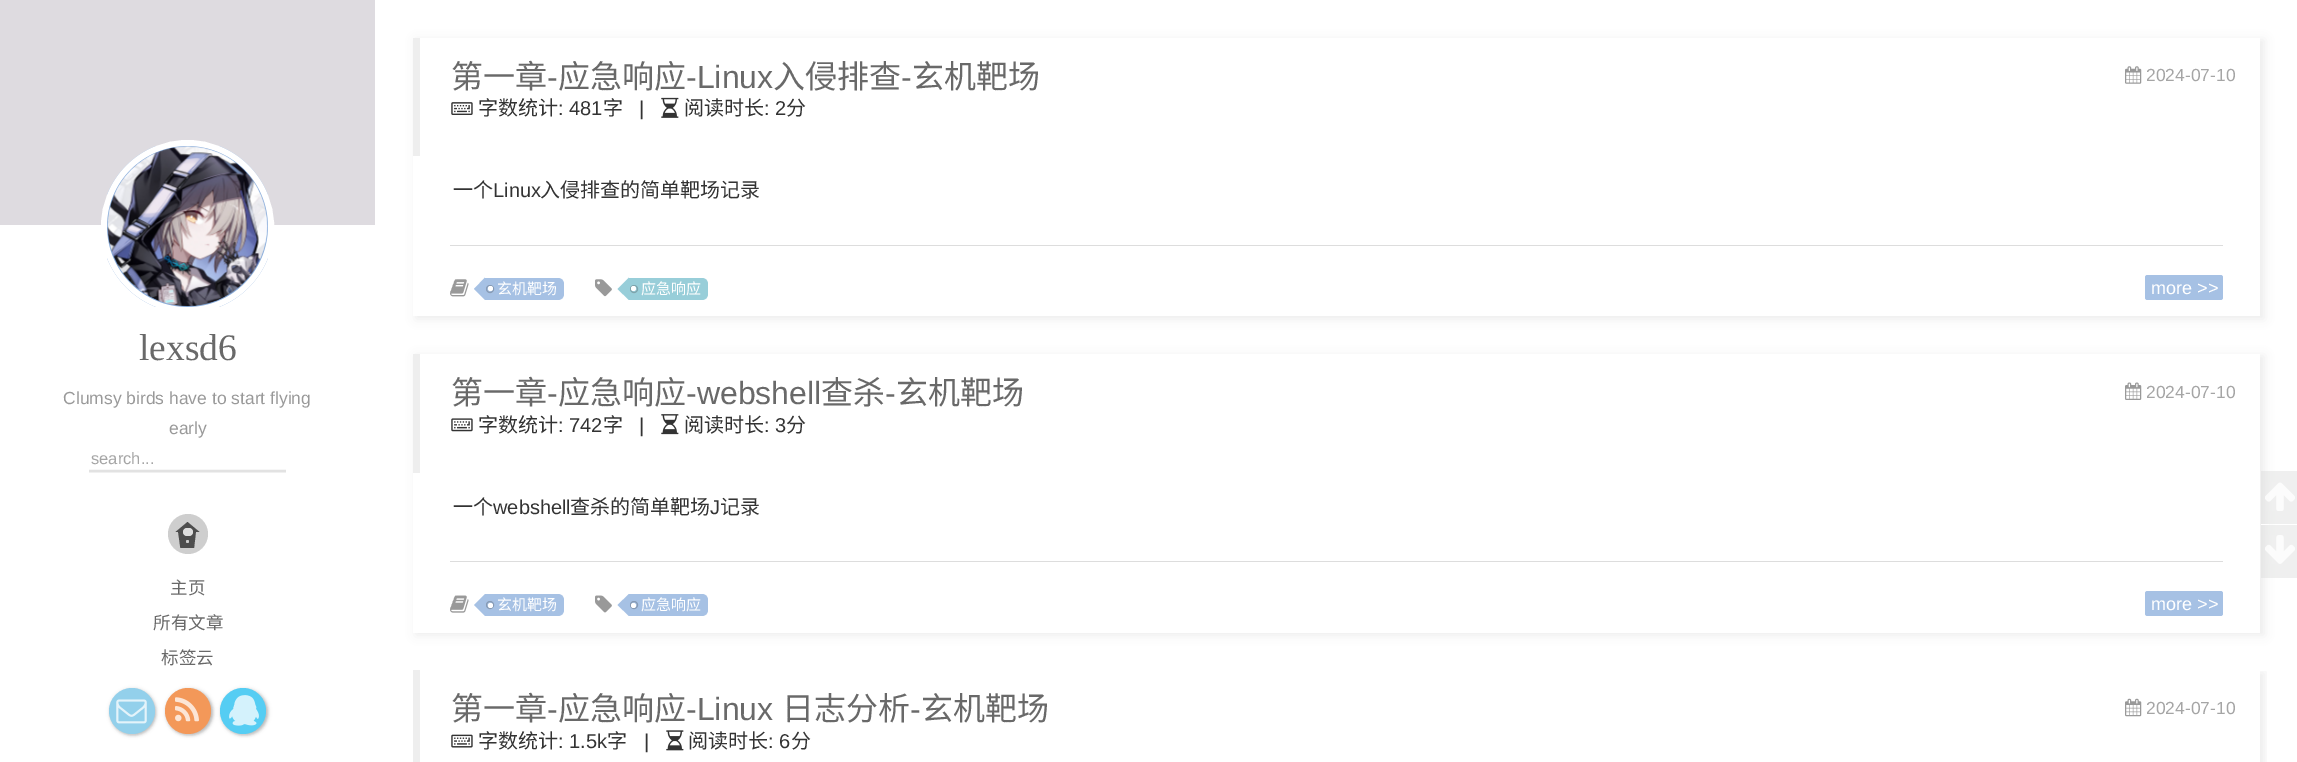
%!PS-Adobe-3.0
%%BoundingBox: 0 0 2297 762
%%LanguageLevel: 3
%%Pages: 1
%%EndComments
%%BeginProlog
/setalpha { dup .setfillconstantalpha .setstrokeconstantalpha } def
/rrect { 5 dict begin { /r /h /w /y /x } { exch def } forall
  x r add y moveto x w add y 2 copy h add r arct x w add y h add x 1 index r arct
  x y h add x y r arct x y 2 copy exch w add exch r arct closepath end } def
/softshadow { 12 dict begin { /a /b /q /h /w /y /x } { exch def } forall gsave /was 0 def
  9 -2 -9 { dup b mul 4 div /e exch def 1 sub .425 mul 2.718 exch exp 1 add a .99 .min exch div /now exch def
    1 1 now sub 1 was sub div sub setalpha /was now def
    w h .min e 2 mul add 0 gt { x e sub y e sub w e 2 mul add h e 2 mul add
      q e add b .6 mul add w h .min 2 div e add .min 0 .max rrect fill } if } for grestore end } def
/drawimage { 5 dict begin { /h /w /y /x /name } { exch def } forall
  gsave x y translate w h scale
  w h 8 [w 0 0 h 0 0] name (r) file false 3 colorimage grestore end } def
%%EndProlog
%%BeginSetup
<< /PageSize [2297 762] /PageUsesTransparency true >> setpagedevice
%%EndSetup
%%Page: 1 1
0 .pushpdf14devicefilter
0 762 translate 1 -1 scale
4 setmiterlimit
1 setgray
0 0 2297 762 rectfill
0.871 0.859 0.878 setrgbcolor
0 0 375 225 rectfill
0.533 0.675 0.859 setrgbcolor
newpath 187.5 226.5 83.5 0 360 arc closepath gsave fill grestore
1 setgray
6 setlinewidth
stroke
(images/1.raw) 107 146 161 161 drawimage
0.886 setgray
2.5 setlinewidth
newpath 286 471 moveto 285 471 lineto 90 471 lineto 89 471 lineto stroke
0.808 setgray
newpath 188 534 20 0 360 arc closepath fill
0.302 setgray
newpath 199.5 532 moveto 175.5 532 lineto 187.5 522 lineto closepath fill
gsave
175 521 26 27 rectclip
newpath 178 531 moveto 196 531 lineto 193.5 553 lineto 189.5 554.5 185 554 181 552.5 curveto closepath fill
grestore
0.867 setgray
183 528 10 8 4 rrect fill
0.8 setgray
newpath 187.5 541.5 1.5 0 360 arc closepath fill
0.251 setgray
110 689 46 46 23 2 0.3 softshadow
110 690 46 46 23 1 0.1 softshadow
0.576 0.816 0.922 setrgbcolor
newpath 132 711 23 0 360 arc closepath fill
(images/2.raw) 116 699 31 25 drawimage
0.251 setgray
166 689 47 46 23 2 0.3 softshadow
166 690 47 46 23 1 0.1 softshadow
0.953 0.596 0.349 setrgbcolor
newpath 188 711 23 0 360 arc closepath fill
(images/3.raw) 175 697 24 25 drawimage
0.251 setgray
221 689 47 46 23 2 0.3 softshadow
221 690 47 46 23 1 0.1 softshadow
0.333 0.804 0.953 setrgbcolor
newpath 243 711 23 0 360 arc closepath fill
(images/4.raw) 229 695 30 31 drawimage
gsave
newpath 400 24 moveto 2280 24 lineto 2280 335 lineto 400 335 lineto closepath 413 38 moveto 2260 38 lineto 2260 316 lineto 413 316 lineto closepath eoclip newpath
0 setgray
416 40 1848 279 0 5 0.07 softshadow
grestore
0.933 setgray
413 38 7 118 rectfill
(images/5.raw) 451 102 22 13 drawimage
(images/6.raw) 661 97 18 21 drawimage
0.867 setgray
450 245 1773 1 rectfill
(images/7.raw) 450 279 19 18 drawimage
0.651 0.757 0.894 setrgbcolor
newpath 485 278 moveto 558 278 lineto 561.5 278 564 280.5 564 284 curveto 564 294 lineto 564 297.5 561.5 300 558 300 curveto 485 300 lineto closepath fill
newpath 485 277.5 moveto 485 300 lineto 474 289 lineto closepath fill
0.529 0.604 0.702 setrgbcolor
1 setlinewidth
newpath 490 289 3.5 0 360 arc closepath stroke
1 setgray
newpath 490.5 288.5 2.5 0 360 arc closepath fill
(images/8.raw) 595 279 17 18 drawimage
0.596 0.808 0.851 setrgbcolor
newpath 629 278 moveto 702 278 lineto 705.5 278 708 280.5 708 284 curveto 708 294 lineto 708 297.5 705.5 300 702 300 curveto 629 300 lineto closepath fill
newpath 629 277.5 moveto 629 300 lineto 617.5 289 lineto closepath fill
0.494 0.639 0.671 setrgbcolor
newpath 634 289 3.5 0 360 arc closepath stroke
1 setgray
newpath 633.5 288.5 2.5 0 360 arc closepath fill
0.651 0.757 0.894 setrgbcolor
2145 275 78 25 2.5 rrect fill
(images/9.raw) 2125 66 17 18 drawimage
gsave
newpath 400 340 moveto 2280 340 lineto 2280 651 lineto 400 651 lineto closepath 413 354 moveto 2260 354 lineto 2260 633 lineto 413 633 lineto closepath eoclip newpath
0 setgray
416 356 1848 279 0 5 0.07 softshadow
grestore
0.933 setgray
413 354 7 119 rectfill
(images/10.raw) 451 418 22 14 drawimage
(images/11.raw) 661 414 18 21 drawimage
0.867 setgray
450 561 1773 1 rectfill
(images/12.raw) 450 595 19 18 drawimage
0.651 0.757 0.894 setrgbcolor
newpath 485 594 moveto 558 594 lineto 561.5 594 564 596.5 564 600 curveto 564 610 lineto 564 613.5 561.5 616 558 616 curveto 485 616 lineto closepath fill
newpath 485 594 moveto 485 616 lineto 474 605 lineto closepath fill
0.529 0.604 0.702 setrgbcolor
newpath 490 605 3.5 0 360 arc closepath stroke
1 setgray
newpath 490.5 605.5 2.5 0 360 arc closepath fill
(images/13.raw) 595 595 17 18 drawimage
0.651 0.757 0.894 setrgbcolor
newpath 629 594 moveto 702 594 lineto 705.5 594 708 596.5 708 600 curveto 708 610 lineto 708 613.5 705.5 616 702 616 curveto 629 616 lineto closepath fill
newpath 629 594 moveto 629 616 lineto 617.5 605 lineto closepath fill
0.529 0.604 0.702 setrgbcolor
newpath 634 605 3.5 0 360 arc closepath stroke
1 setgray
newpath 633.5 605.5 2.5 0 360 arc closepath fill
0.651 0.757 0.894 setrgbcolor
2145 591 78 25 2.5 rrect fill
(images/14.raw) 2125 382 17 18 drawimage
gsave
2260 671 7 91 rectclip
0 setgray
416 673 1848 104 0 5 0.07 softshadow
grestore
0.933 setgray
413 670 7 92 rectfill
(images/15.raw) 451 734 22 14 drawimage
(images/16.raw) 666 730 18 21 drawimage
(images/17.raw) 2125 698 17 19 drawimage
0.4 setalpha
0.843 0.847 0.843 setrgbcolor
2261 471 36 53 rectfill
1 setalpha
1 setgray
2261 524 8 1 rectfill
(images/18.raw) 2265 482 30 29 drawimage
0.4 setalpha
0.843 0.847 0.843 setrgbcolor
2261 525 36 53 rectfill
1 setalpha
(images/19.raw) 2265 535 30 29 drawimage
/LiberationSerif-Regular [37.5 0 0 -37.5 0 0] selectfont
0.412 setgray
139 360 moveto (lexsd6) show
/LiberationSans-Regular [17.5 0 0 -17.5 0 0] selectfont
0.6 setgray
63 404 moveto (Clumsy birds have to start flying) show
169 434 moveto (early) show
/LiberationSans-Regular [16.5 0 0 -16.5 0 0] selectfont
0.647 setgray
91 464 moveto (search...) show
/NotoSansCJKSC-Regular [17.5 0 0 -17.5 0 0] selectfont
0.412 setgray
170 594 moveto (主页) show
153 629 moveto (所有文章) show
161 664 moveto (标签云) show
/NotoSansCJKSC-Regular [32 0 0 -32 0 0] selectfont
451 88 moveto (第一章) show
/LiberationSans-Regular [32 0 0 -32 0 0] selectfont
547 88 moveto (-) show
/NotoSansCJKSC-Regular [32 0 0 -32 0 0] selectfont
558 88 moveto (应急响应) show
/LiberationSans-Regular [32 0 0 -32 0 0] selectfont
686 88 moveto (-Linux) show
/NotoSansCJKSC-Regular [32 0 0 -32 0 0] selectfont
773 88 moveto (入侵排查) show
/LiberationSans-Regular [32 0 0 -32 0 0] selectfont
901 88 moveto (-) show
/NotoSansCJKSC-Regular [32 0 0 -32 0 0] selectfont
912 88 moveto (玄机靶场) show
/NotoSansCJKSC-Regular [20 0 0 -20 0 0] selectfont
0.2 setgray
478 115 moveto (字数统计) show
/LiberationSans-Regular [20 0 0 -20 0 0] selectfont
558 115 moveto (: 481) show
/NotoSansCJKSC-Regular [20 0 0 -20 0 0] selectfont
603 115 moveto (字) show
/LiberationSans-Regular [20 0 0 -20 0 0] selectfont
639 115 moveto (|) show
/NotoSansCJKSC-Regular [20 0 0 -20 0 0] selectfont
684 115 moveto (阅读时长) show
/LiberationSans-Regular [20 0 0 -20 0 0] selectfont
764 115 moveto (: 2) show
/NotoSansCJKSC-Regular [20 0 0 -20 0 0] selectfont
786 115 moveto (分) show
453 197 moveto (一个) show
/LiberationSans-Regular [20 0 0 -20 0 0] selectfont
493 197 moveto (Linux) show
/NotoSansCJKSC-Regular [20 0 0 -20 0 0] selectfont
540 197 moveto (入侵排查的简单靶场记录) show
/NotoSansCJKSC-Regular [15 0 0 -15 0 0] selectfont
1 setgray
497 294 moveto (玄机靶场) show
641 294 moveto (应急响应) show
/LiberationSans-Regular [18 0 0 -18 0 0] selectfont
2151 294 moveto (more >>) show
/LiberationSans-Regular [17.5 0 0 -17.5 0 0] selectfont
0.647 setgray
2146 81 moveto (2024-07-10) show
/NotoSansCJKSC-Regular [32 0 0 -32 0 0] selectfont
0.412 setgray
451 404 moveto (第一章) show
/LiberationSans-Regular [32 0 0 -32 0 0] selectfont
547 404 moveto (-) show
/NotoSansCJKSC-Regular [32 0 0 -32 0 0] selectfont
558 404 moveto (应急响应) show
/LiberationSans-Regular [32 0 0 -32 0 0] selectfont
686 404 moveto (-webshell) show
/NotoSansCJKSC-Regular [32 0 0 -32 0 0] selectfont
821 404 moveto (查杀) show
/LiberationSans-Regular [32 0 0 -32 0 0] selectfont
885 404 moveto (-) show
/NotoSansCJKSC-Regular [32 0 0 -32 0 0] selectfont
896 404 moveto (玄机靶场) show
/NotoSansCJKSC-Regular [20 0 0 -20 0 0] selectfont
0.2 setgray
478 432 moveto (字数统计) show
/LiberationSans-Regular [20 0 0 -20 0 0] selectfont
558 432 moveto (: 742) show
/NotoSansCJKSC-Regular [20 0 0 -20 0 0] selectfont
603 432 moveto (字) show
/LiberationSans-Regular [20 0 0 -20 0 0] selectfont
639 432 moveto (|) show
/NotoSansCJKSC-Regular [20 0 0 -20 0 0] selectfont
684 432 moveto (阅读时长) show
/LiberationSans-Regular [20 0 0 -20 0 0] selectfont
764 432 moveto (: 3) show
/NotoSansCJKSC-Regular [20 0 0 -20 0 0] selectfont
786 432 moveto (分) show
453 514 moveto (一个) show
/LiberationSans-Regular [20 0 0 -20 0 0] selectfont
493 514 moveto (webshell) show
/NotoSansCJKSC-Regular [20 0 0 -20 0 0] selectfont
570 514 moveto (查杀的简单靶场) show
/LiberationSans-Regular [20 0 0 -20 0 0] selectfont
710 514 moveto (J) show
/NotoSansCJKSC-Regular [20 0 0 -20 0 0] selectfont
720 514 moveto (记录) show
/NotoSansCJKSC-Regular [15 0 0 -15 0 0] selectfont
1 setgray
497 610 moveto (玄机靶场) show
641 610 moveto (应急响应) show
/LiberationSans-Regular [18 0 0 -18 0 0] selectfont
2151 610 moveto (more >>) show
/LiberationSans-Regular [17.5 0 0 -17.5 0 0] selectfont
0.647 setgray
2146 398 moveto (2024-07-10) show
/NotoSansCJKSC-Regular [32 0 0 -32 0 0] selectfont
0.412 setgray
451 720 moveto (第一章) show
/LiberationSans-Regular [32 0 0 -32 0 0] selectfont
547 720 moveto (-) show
/NotoSansCJKSC-Regular [32 0 0 -32 0 0] selectfont
558 720 moveto (应急响应) show
/LiberationSans-Regular [32 0 0 -32 0 0] selectfont
686 720 moveto (-Linux) show
/NotoSansCJKSC-Regular [32 0 0 -32 0 0] selectfont
782 720 moveto (日志分析) show
/LiberationSans-Regular [32 0 0 -32 0 0] selectfont
910 720 moveto (-) show
/NotoSansCJKSC-Regular [32 0 0 -32 0 0] selectfont
921 720 moveto (玄机靶场) show
/NotoSansCJKSC-Regular [20 0 0 -20 0 0] selectfont
0.2 setgray
478 748 moveto (字数统计) show
/LiberationSans-Regular [20 0 0 -20 0 0] selectfont
558 748 moveto (: 1.5k) show
/NotoSansCJKSC-Regular [20 0 0 -20 0 0] selectfont
607 748 moveto (字) show
/LiberationSans-Regular [20 0 0 -20 0 0] selectfont
644 748 moveto (|) show
/NotoSansCJKSC-Regular [20 0 0 -20 0 0] selectfont
688 748 moveto (阅读时长) show
/LiberationSans-Regular [20 0 0 -20 0 0] selectfont
768 748 moveto (: 6) show
/NotoSansCJKSC-Regular [20 0 0 -20 0 0] selectfont
791 748 moveto (分) show
/LiberationSans-Regular [17.5 0 0 -17.5 0 0] selectfont
0.647 setgray
2146 714 moveto (2024-07-10) show
.poppdf14devicefilter showpage
%%EOF
